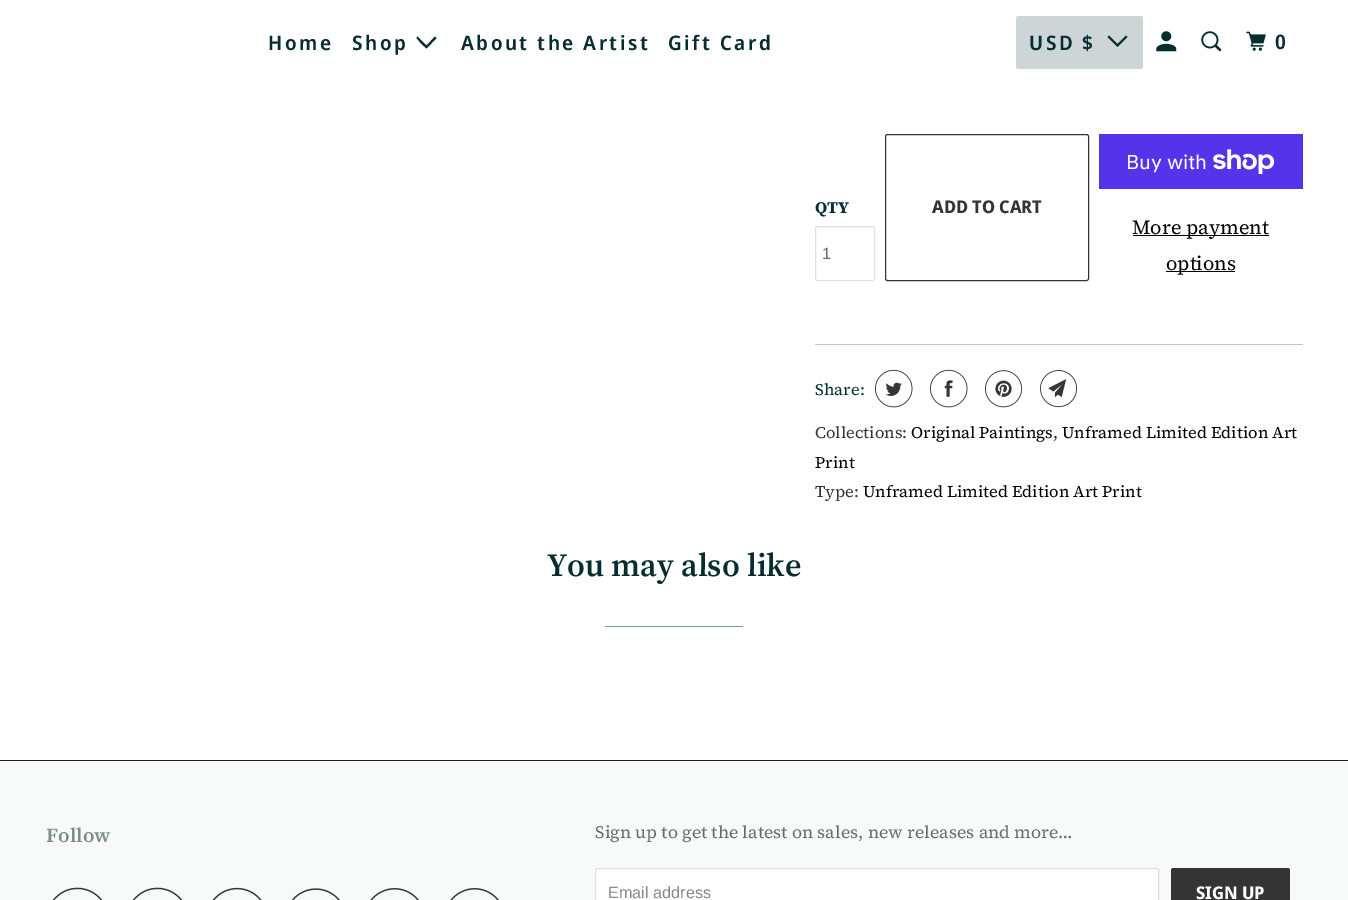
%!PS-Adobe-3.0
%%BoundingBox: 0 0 1348 900
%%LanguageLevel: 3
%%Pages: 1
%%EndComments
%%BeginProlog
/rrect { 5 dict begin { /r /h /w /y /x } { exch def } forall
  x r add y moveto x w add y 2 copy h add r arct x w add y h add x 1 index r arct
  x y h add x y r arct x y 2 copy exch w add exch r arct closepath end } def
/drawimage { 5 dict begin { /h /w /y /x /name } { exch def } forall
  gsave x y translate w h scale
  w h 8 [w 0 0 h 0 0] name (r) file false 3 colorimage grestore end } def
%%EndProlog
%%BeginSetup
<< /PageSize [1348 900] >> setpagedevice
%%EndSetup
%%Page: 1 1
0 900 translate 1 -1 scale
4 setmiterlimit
1 setgray
0 0 1348 900 rectfill
0.024 0.176 0.188 setrgbcolor
newpath 421 43.5 moveto 416.5 38 lineto 417.5 36.5 lineto 426.5 45.5 lineto 435 36.5 lineto 436.5 38 lineto 426.5 48.5 lineto closepath fill
0.804 0.835 0.839 setrgbcolor
1016 16 127 53 2.5 rrect fill
0.024 0.176 0.188 setrgbcolor
newpath 1112.5 42 moveto 1107.5 37 lineto 1109 35.5 lineto 1117.5 44 lineto 1126 35.5 lineto 1127.5 37 lineto 1117.5 47 lineto closepath fill
(images/1.raw) 1156 31 21 21 drawimage
(images/2.raw) 1201 31 21 21 drawimage
(images/3.raw) 1246 31 20 20 drawimage
0.875 setgray
815.5 226.5 59 54 2 rrect stroke
0.208 0.204 0.204 setrgbcolor
885.5 134.5 203 146 2 rrect stroke
0.329 0.2 0.922 setrgbcolor
1099 134 204 55 rectfill
(images/4.raw) 1213 149 62 25 drawimage
0 setgray
1133 235 136 1 rectfill
1166 271 69 1 rectfill
0.722 0.776 0.776 setrgbcolor
815 344 488 1 rectfill
(images/5.raw) 875 369 38 39 drawimage
(images/6.raw) 930 369 38 39 drawimage
(images/7.raw) 985 370 38 38 drawimage
(images/8.raw) 1040 370 38 38 drawimage
0.478 0.62 0.631 setrgbcolor
605 626 138 1 rectfill
0.973 0.98 0.98 setrgbcolor
0 761 1348 139 rectfill
0.106 0.122 0.137 setrgbcolor
0 760 1348 1 rectfill
(images/9.raw) 52 887 51 13 drawimage
(images/10.raw) 132 887 51 13 drawimage
(images/11.raw) 212 887 50 13 drawimage
(images/12.raw) 291 888 49 12 drawimage
(images/13.raw) 370 888 49 12 drawimage
(images/13.raw) 450 888 49 12 drawimage
1 setgray
595.5 868.5 563 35 2 rrect gsave fill grestore
0.875 setgray
stroke
0.208 0.204 0.204 setrgbcolor
1171 868 119 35 2.5 rrect fill
/NotoSansDisplay-SemiBold [20 0 0 -20 0 0] selectfont
0.024 0.176 0.188 setrgbcolor
268 50 moveto 2.5 0 (Home) ashow
352 50 moveto 2.5 0 (Shop) ashow
461 50 moveto 2.5 0 (About the Artist) ashow
668 50 moveto 2.5 0 (Gift Card) ashow
1029 50 moveto 2.5 0 (USD $) ashow
1275 49 moveto 2.5 0 (0) ashow
/SourceSerif4-Bold [16.25 0 0 -16.25 0 0] selectfont
815 213 moveto (QTY) show
/LiberationSans-Regular [16.25 0 0 -16.25 0 0] selectfont
0.373 0.416 0.49 setrgbcolor
822 259 moveto (1) show
/NotoSansDisplay-Bold [17.5 0 0 -17.5 0 0] selectfont
0.208 0.204 0.204 setrgbcolor
932 213 moveto (ADD TO CART) show
/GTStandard-Regular [20 0 0 -20 0 0] selectfont
1 setgray
1126 169 moveto (Buy with) show
/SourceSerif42-Regular [20 0 0 -20 0 0] selectfont
0 setgray
1132 234 moveto (More payment) show
1166 270 moveto (options) show
/SourceSerif4-Regular [16.25 0 0 -16.25 0 0] selectfont
0.024 0.176 0.188 setrgbcolor
815 395 moveto (Share:) show
0.208 0.204 0.204 setrgbcolor
815 438 moveto (Collections:) show
0 setgray
911 438 moveto (Original Paintings) show
0.024 0.176 0.188 setrgbcolor
1053 438 moveto (,) show
0 setgray
1062 438 moveto (Unframed Limited Edition Art) show
815 468 moveto (Print) show
0.208 0.204 0.204 setrgbcolor
815 497 moveto (Type:) show
0 setgray
863 497 moveto (Unframed Limited Edition Art Print) show
/SourceSerif4-SemiBold [32.5 0 0 -32.5 0 0] selectfont
0.024 0.176 0.188 setrgbcolor
547 576 moveto (You may also like) show
/SourceSerif42-SemiBold [20 0 0 -20 0 0] selectfont
0.498 0.549 0.553 setrgbcolor
46 842 moveto (Follow) show
/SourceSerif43-Regular [17.5 0 0 -17.5 0 0] selectfont
0.42 setgray
595 838 moveto (Sign up to get the latest on sales, new releases and more…) show
/LiberationSans-Regular [16.25 0 0 -16.25 0 0] selectfont
0.533 setgray
608 898 moveto (Email address) show
/NotoSansDisplay-Bold [17.5 0 0 -17.5 0 0] selectfont
1 setgray
1196 899 moveto (SIGN UP) show
showpage
%%EOF
